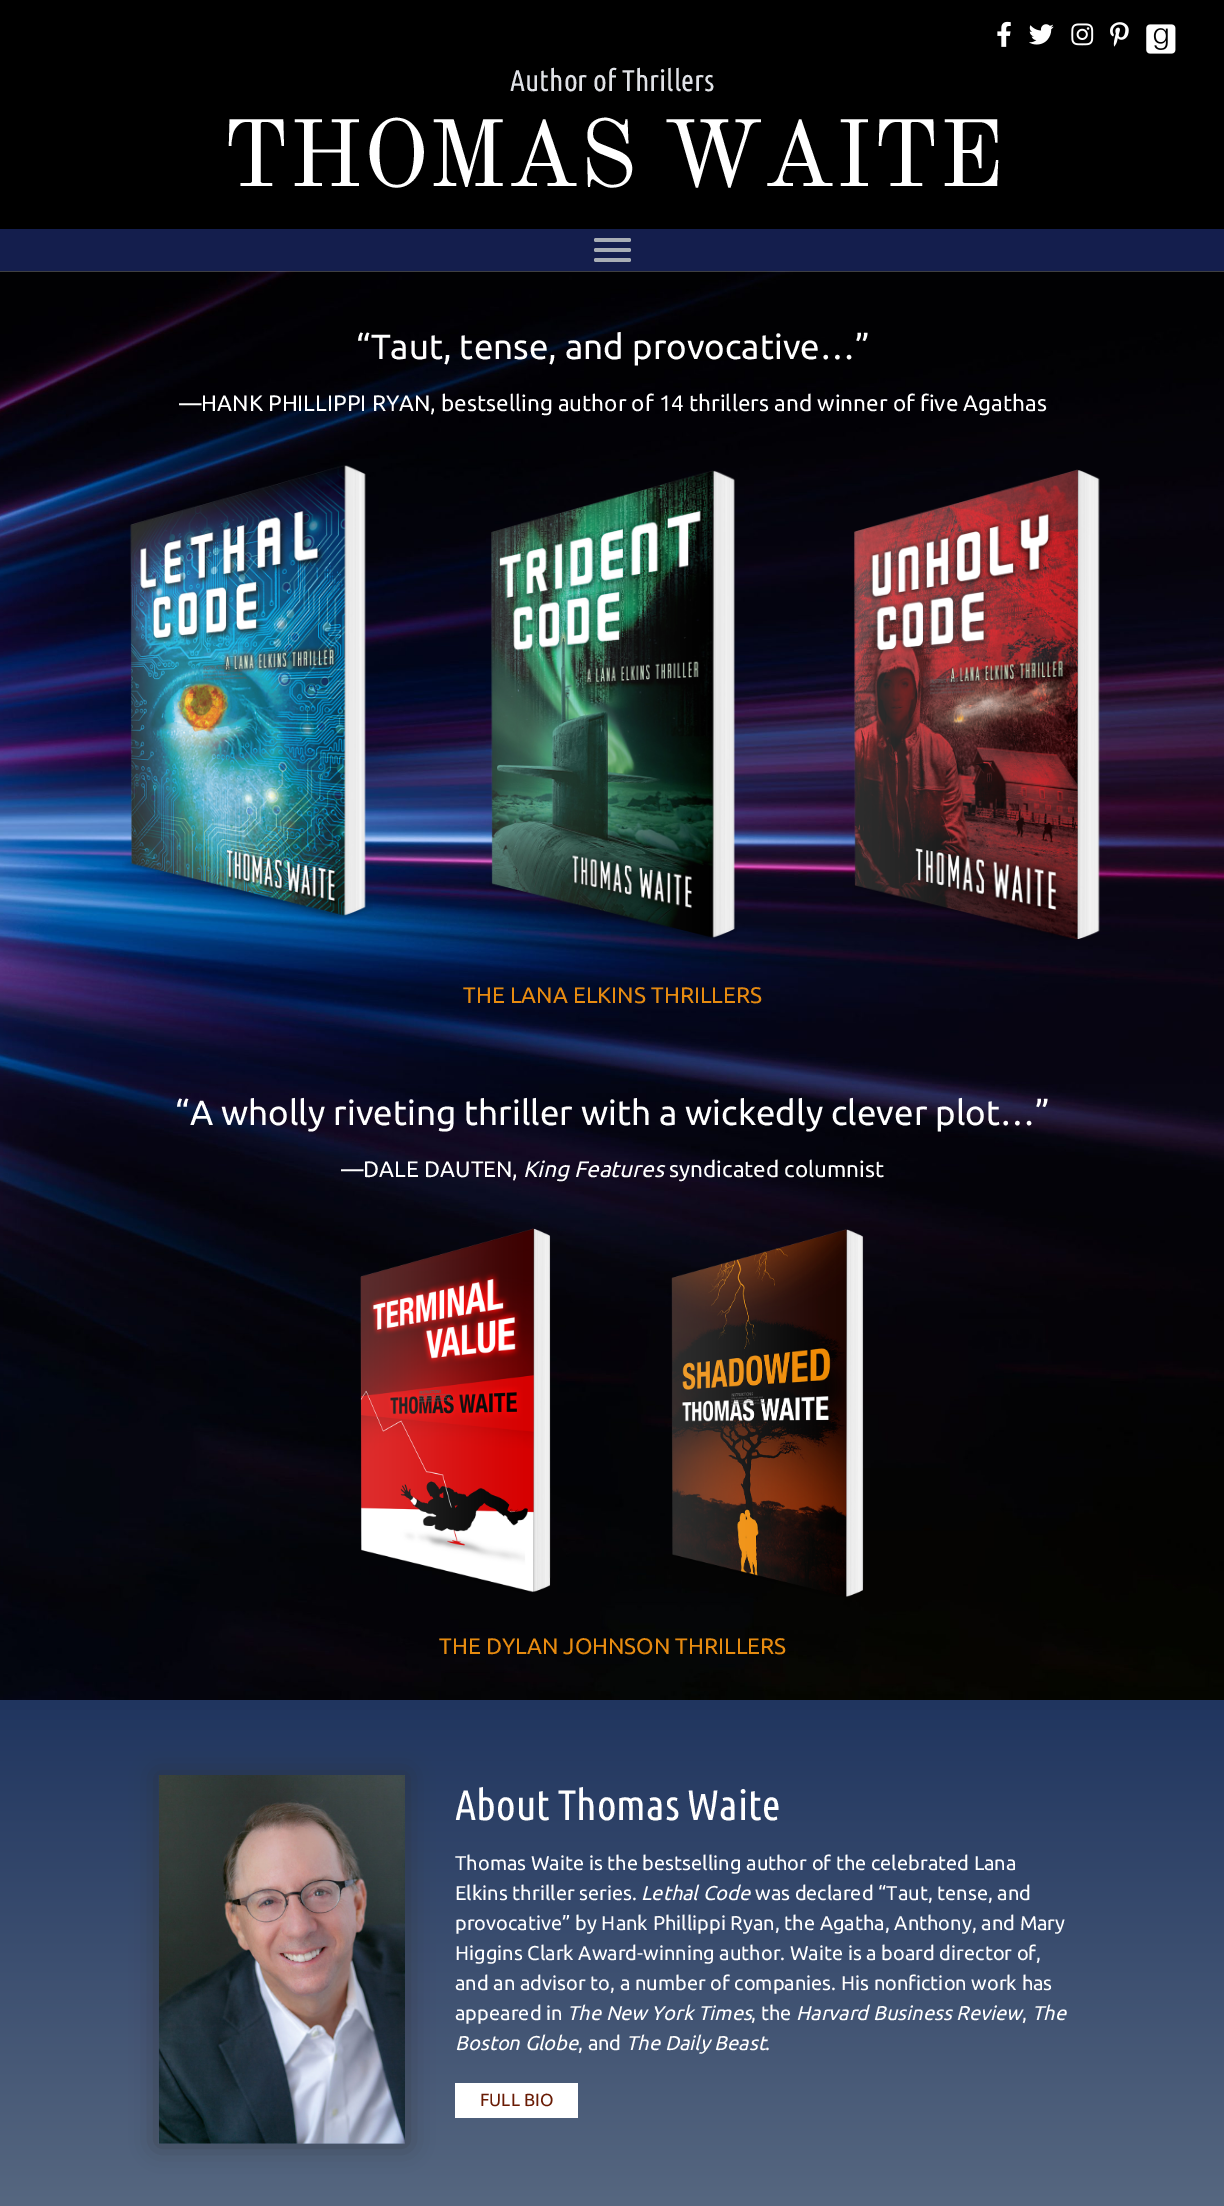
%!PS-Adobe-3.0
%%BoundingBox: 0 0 1224 2206
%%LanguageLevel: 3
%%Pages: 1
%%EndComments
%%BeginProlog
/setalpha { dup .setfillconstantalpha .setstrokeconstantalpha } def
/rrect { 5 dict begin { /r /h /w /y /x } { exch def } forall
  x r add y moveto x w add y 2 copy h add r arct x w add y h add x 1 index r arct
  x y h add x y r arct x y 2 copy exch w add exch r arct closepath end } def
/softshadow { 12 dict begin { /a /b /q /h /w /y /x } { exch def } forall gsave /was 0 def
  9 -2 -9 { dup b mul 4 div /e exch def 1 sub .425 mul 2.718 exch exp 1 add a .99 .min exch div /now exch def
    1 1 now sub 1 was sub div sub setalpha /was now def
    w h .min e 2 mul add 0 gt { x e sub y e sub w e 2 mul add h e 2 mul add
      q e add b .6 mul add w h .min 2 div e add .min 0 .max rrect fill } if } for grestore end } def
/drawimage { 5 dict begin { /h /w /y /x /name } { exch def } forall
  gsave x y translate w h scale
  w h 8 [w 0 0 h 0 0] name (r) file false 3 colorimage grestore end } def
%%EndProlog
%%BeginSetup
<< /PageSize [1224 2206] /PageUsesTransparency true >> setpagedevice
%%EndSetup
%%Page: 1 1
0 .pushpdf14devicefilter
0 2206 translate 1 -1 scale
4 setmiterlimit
1 setgray
0 0 1224 2206 rectfill
0 setgray
0 0 1224 229 rectfill
(images/1.raw) 997 21 14 26 drawimage
(images/2.raw) 1029 24 25 21 drawimage
(images/3.raw) 1071 23 23 23 drawimage
(images/4.raw) 1110 22 19 25 drawimage
(images/5.raw) 1146 24 30 30 drawimage
0.078 0.118 0.302 setrgbcolor
0 229 1224 42 rectfill
0.659 0.682 0.714 setrgbcolor
594 248 37 4 2 rrect fill
594 238 37 4 2 rrect fill
594 258 37 4 2 rrect fill
(images/6.raw) 0 271 1224 1429 drawimage
(images/7.raw) 122 465 251 455 drawimage
(images/8.raw) 489 470 248 471 drawimage
(images/9.raw) 854 469 246 471 drawimage
(images/10.raw) 360 1228 191 365 drawimage
(images/11.raw) 671 1229 193 368 drawimage
gsave newpath 0 1700 moveto 1224 1700 lineto 1224 2206 lineto 0 2206 lineto closepath clip newpath
<< /ShadingType 2 /ColorSpace /DeviceRGB /Coords [613 1700 613 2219] /Extend [true true] /Function << /FunctionType 2 /Domain [0 1] /C0 [0.125 0.208 0.373] /C1 [0.341 0.408 0.506] /N 1 >> >> shfill grestore
0.176 setgray
156 1773 252 373 0 12.5 0.5 softshadow
(images/12.raw) 158 1775 247 369 drawimage
1 setgray
455 2083 123 35 rectfill
/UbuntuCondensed-Regular [30 0 0 -30 0 0] selectfont
0.878 0.886 0.906 setrgbcolor
510 91 moveto (Author of Thrillers) show
/OldStandardTT-Regular [93.75 0 0 -93.75 0 0] selectfont
1 setgray
222 186 moveto (THOMAS WAITE) show
/Ubuntu-Regular [35 0 0 -35 0 0] selectfont
356 359 moveto (“Taut, tense, and provocative…”) show
/Ubuntu-Regular [22.5 0 0 -22.5 0 0] selectfont
179 411 moveto (—HANK PHILLIPPI RYAN, bestselling author of 14 thrillers and winner of five Agathas) show
0.906 0.545 0.063 setrgbcolor
463 1003 moveto (THE LANA ELKINS THRILLERS) show
/Ubuntu-Regular [35 0 0 -35 0 0] selectfont
1 setgray
175 1125 moveto (“A wholly riveting thriller with a wickedly clever plot…”) show
/Ubuntu-Regular [22.5 0 0 -22.5 0 0] selectfont
341 1177 moveto (—DALE DAUTEN,) show
/Ubuntu-Italic [22.5 0 0 -22.5 0 0] selectfont
523 1177 moveto (King Features) show
/Ubuntu-Regular [22.5 0 0 -22.5 0 0] selectfont
669 1177 moveto (syndicated columnist) show
0.906 0.545 0.063 setrgbcolor
439 1654 moveto (THE DYLAN JOHNSON THRILLERS) show
/UbuntuCondensed-Regular [42.5 0 0 -42.5 0 0] selectfont
1 setgray
455 1820 moveto (About Thomas Waite) show
/Ubuntu-Regular [20 0 0 -20 0 0] selectfont
455 1870 moveto (Thomas Waite is the bestselling author of the celebrated Lana) show
455 1900 moveto (Elkins thriller series.) show
/Ubuntu-Italic [20 0 0 -20 0 0] selectfont
641 1900 moveto (Lethal Code) show
/Ubuntu-Regular [20 0 0 -20 0 0] selectfont
755 1900 moveto (was declared “Taut, tense, and) show
455 1930 moveto (provocative” by Hank Phillippi Ryan, the Agatha, Anthony, and Mary) show
455 1960 moveto (Higgins Clark Award-winning author. Waite is a board director of,) show
455 1990 moveto (and an advisor to, a number of companies. His nonfiction work has) show
455 2020 moveto (appeared in) show
/Ubuntu-Italic [20 0 0 -20 0 0] selectfont
567 2020 moveto (The New York Times) show
/Ubuntu-Regular [20 0 0 -20 0 0] selectfont
751 2020 moveto (, the) show
/Ubuntu-Italic [20 0 0 -20 0 0] selectfont
796 2020 moveto (Harvard Business Review) show
1032 2020 moveto (The) show
/Ubuntu-Regular [20 0 0 -20 0 0] selectfont
1022 2020 moveto (,) show
/Ubuntu-Italic [20 0 0 -20 0 0] selectfont
455 2050 moveto (Boston Globe) show
/Ubuntu-Regular [20 0 0 -20 0 0] selectfont
578 2050 moveto (, and) show
/Ubuntu-Italic [20 0 0 -20 0 0] selectfont
626 2050 moveto (The Daily Beast) show
/Ubuntu-Regular [20 0 0 -20 0 0] selectfont
765 2050 moveto (.) show
/Ubuntu-Regular [17.5 0 0 -17.5 0 0] selectfont
0.412 0.106 0.016 setrgbcolor
480 2106 moveto (FULL BIO) show
.poppdf14devicefilter showpage
%%EOF
